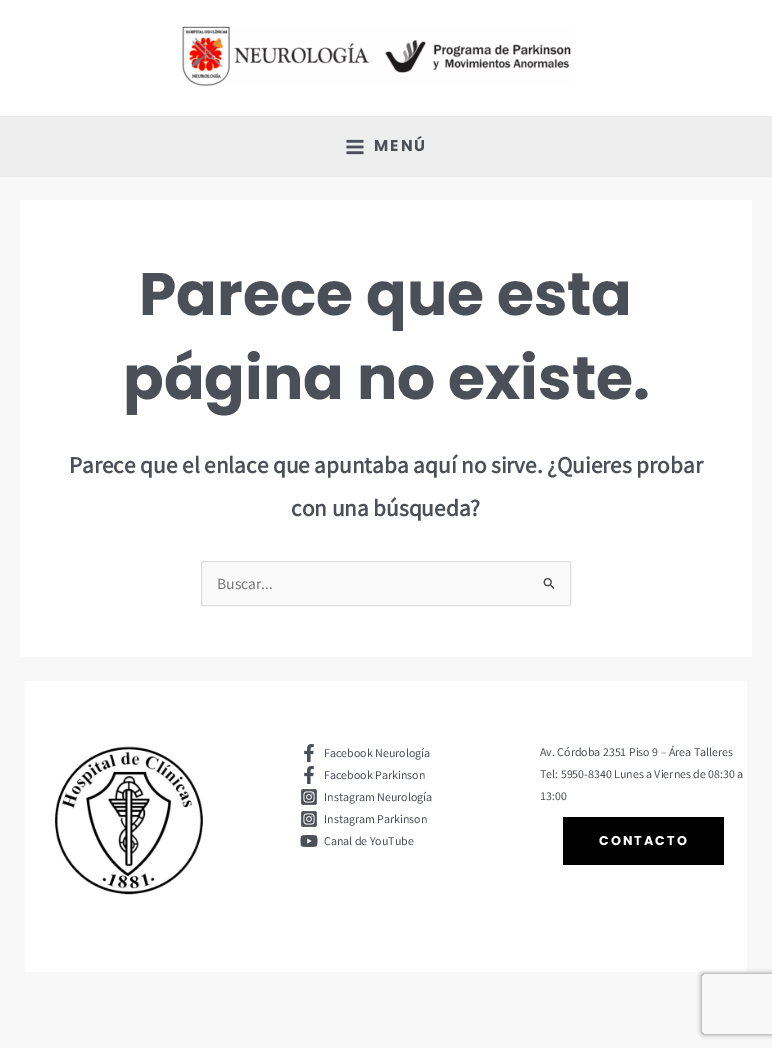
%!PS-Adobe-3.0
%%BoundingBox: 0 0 772 1048
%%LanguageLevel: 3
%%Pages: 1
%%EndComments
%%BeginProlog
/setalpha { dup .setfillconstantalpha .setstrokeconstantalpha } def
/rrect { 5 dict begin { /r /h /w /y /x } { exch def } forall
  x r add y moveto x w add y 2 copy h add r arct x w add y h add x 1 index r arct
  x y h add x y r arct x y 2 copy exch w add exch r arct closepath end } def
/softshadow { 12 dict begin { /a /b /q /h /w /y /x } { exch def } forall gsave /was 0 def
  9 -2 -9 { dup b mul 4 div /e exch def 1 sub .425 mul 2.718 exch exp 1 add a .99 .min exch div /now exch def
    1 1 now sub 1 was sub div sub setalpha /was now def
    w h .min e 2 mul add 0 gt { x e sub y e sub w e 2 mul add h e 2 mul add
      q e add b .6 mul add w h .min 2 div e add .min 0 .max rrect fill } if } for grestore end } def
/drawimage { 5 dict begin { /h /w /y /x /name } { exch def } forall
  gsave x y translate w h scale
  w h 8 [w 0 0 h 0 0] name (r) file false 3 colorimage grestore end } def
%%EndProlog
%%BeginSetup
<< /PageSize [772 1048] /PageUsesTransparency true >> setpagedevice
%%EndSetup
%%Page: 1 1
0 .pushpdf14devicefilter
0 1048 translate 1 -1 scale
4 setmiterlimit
0.973 setgray
0 0 772 1048 rectfill
1 setgray
0 0 772 116 rectfill
0.918 setgray
0 116 772 1 rectfill
(images/1.raw) 182 26 389 60 drawimage
0.933 setgray
0 117 772 59 rectfill
0.918 setgray
0 176 772 1 rectfill
(images/2.raw) 346 139 18 16 drawimage
1 setgray
20 200 732 457 rectfill
0.98 setgray
201.5 561.5 369 44 1.5 rrect gsave fill grestore
0.867 setgray
stroke
(images/3.raw) 543 578 11 11 drawimage
1 setgray
25 681 722 291 rectfill
(images/4.raw) 55 746 148 149 drawimage
(images/5.raw) 304 744 10 18 drawimage
(images/5.raw) 304 766 10 18 drawimage
(images/6.raw) 301 789 16 16 drawimage
(images/6.raw) 301 811 16 16 drawimage
(images/7.raw) 300 835 18 12 drawimage
0 setgray
563 817 161 48 rectfill
gsave
newpath 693 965 moveto 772 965 lineto 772 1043 lineto 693 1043 lineto closepath 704 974 moveto 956 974 lineto 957 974 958 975 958 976 curveto 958 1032 lineto 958 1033 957 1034 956 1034 curveto 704 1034 lineto 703 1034 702 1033 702 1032 curveto 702 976 lineto 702 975 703 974 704 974 curveto closepath eoclip newpath
0.502 setgray
702 974 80 60 2 2.5 1 softshadow
grestore
/Poppins-Bold [15.5 0 0 -15.5 0 0] selectfont
0.294 0.31 0.345 setrgbcolor
374 151 moveto 2 0 (MENÚ) ashow
/Poppins-Bold [60 0 0 -60 0 0] selectfont
139 315 moveto (Parece que esta) show
123 399 moveto (página no existe.) show
/SourceSansPro-Bold [23.25 0 0 -23.25 0 0] selectfont
69 473 moveto (Parece que el enlace que apuntaba aquí no sirve. ¿Quieres probar) show
291 516 moveto (con una búsqueda?) show
/SourceSansPro-Regular [15.5 0 0 -15.5 0 0] selectfont
0.459 setgray
217 589 moveto (Buscar...) show
/SourceSansPro-Regular [11.9 0 0 -11.9 0 0] selectfont
0.294 0.31 0.345 setrgbcolor
324 757 moveto (Facebook Neurología) show
324 779 moveto (Facebook Parkinson) show
324 801 moveto (Instagram Neurología) show
324 823 moveto (Instagram Parkinson) show
324 845 moveto (Canal de YouTube) show
540 756 moveto (Av. Córdoba 2351 Piso 9 – Área Talleres) show
540 778 moveto (Tel: 5950-8340 Lunes a Viernes de 08:30 a) show
540 800 moveto (13:00) show
/Poppins-Bold [12.75 0 0 -12.75 0 0] selectfont
1 setgray
599 845 moveto 2 0 (CONTACTO) ashow
.poppdf14devicefilter showpage
%%EOF
